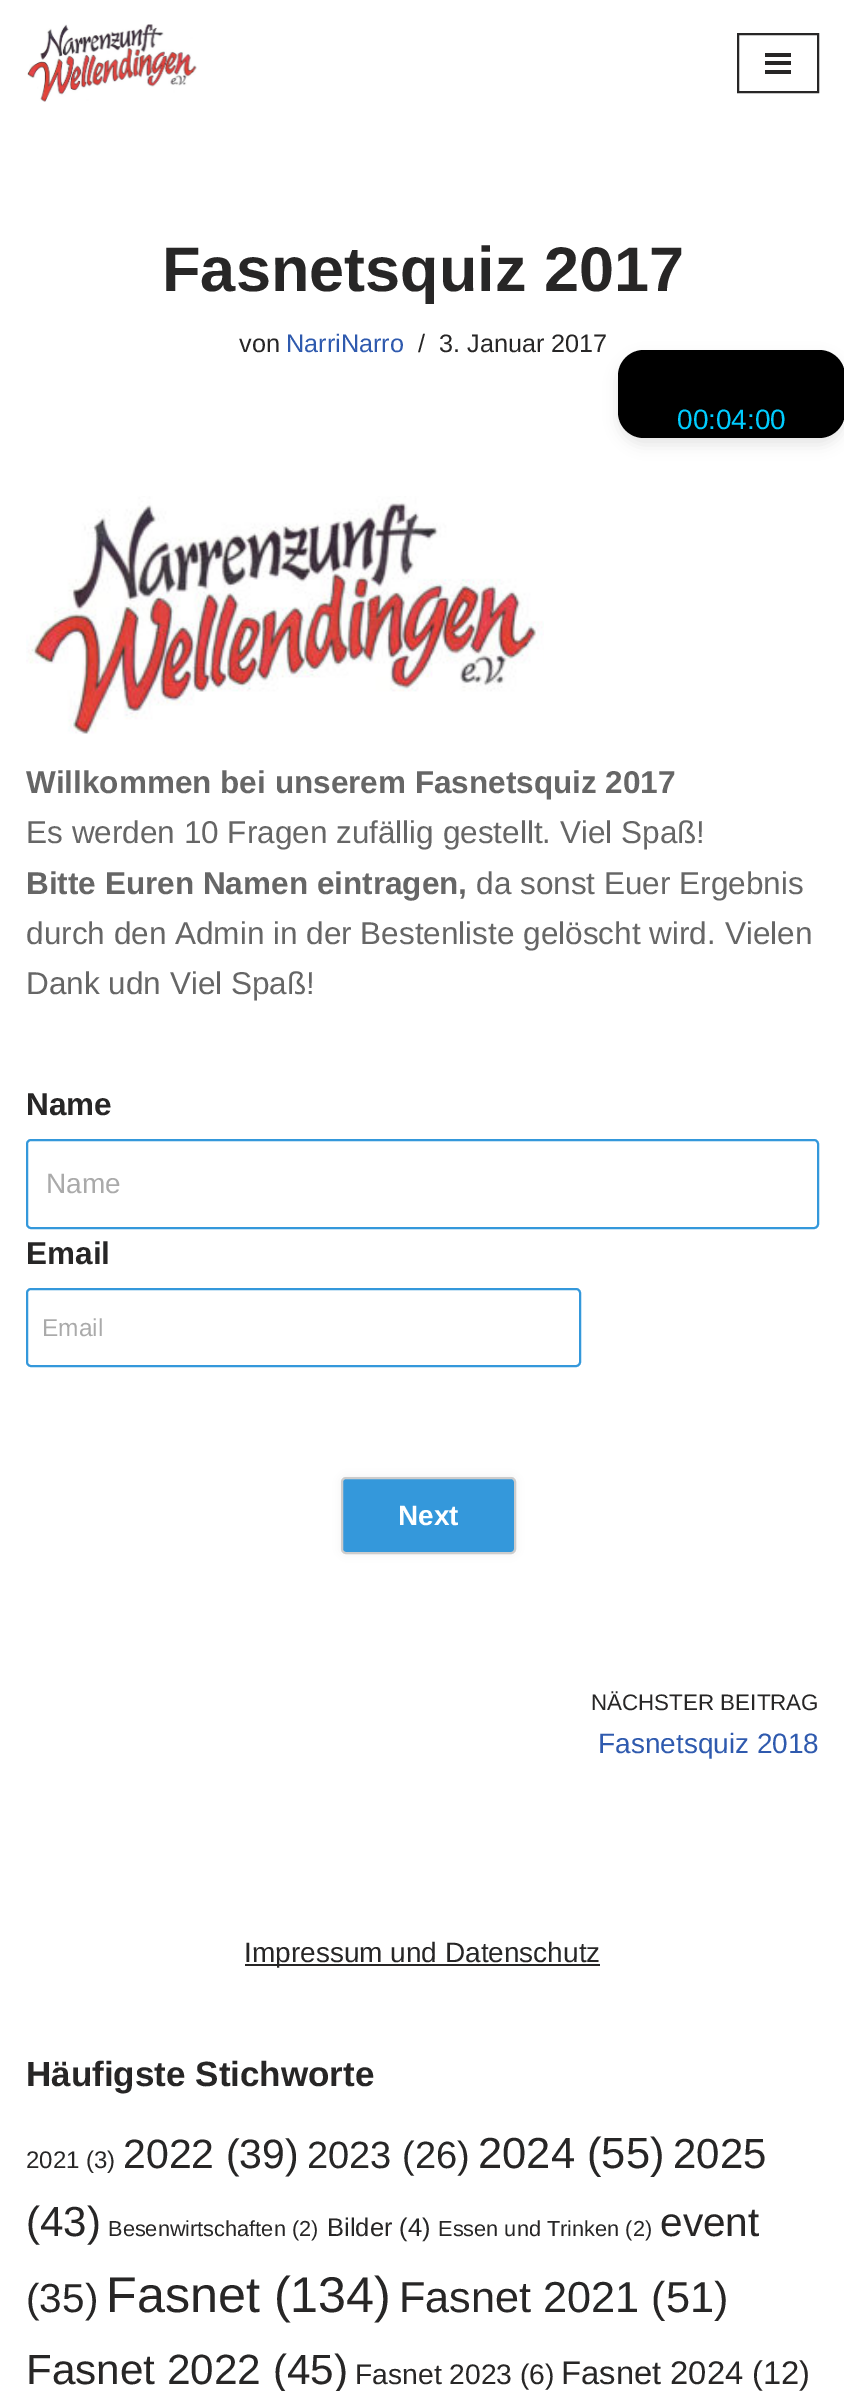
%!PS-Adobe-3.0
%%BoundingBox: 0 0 844 2391
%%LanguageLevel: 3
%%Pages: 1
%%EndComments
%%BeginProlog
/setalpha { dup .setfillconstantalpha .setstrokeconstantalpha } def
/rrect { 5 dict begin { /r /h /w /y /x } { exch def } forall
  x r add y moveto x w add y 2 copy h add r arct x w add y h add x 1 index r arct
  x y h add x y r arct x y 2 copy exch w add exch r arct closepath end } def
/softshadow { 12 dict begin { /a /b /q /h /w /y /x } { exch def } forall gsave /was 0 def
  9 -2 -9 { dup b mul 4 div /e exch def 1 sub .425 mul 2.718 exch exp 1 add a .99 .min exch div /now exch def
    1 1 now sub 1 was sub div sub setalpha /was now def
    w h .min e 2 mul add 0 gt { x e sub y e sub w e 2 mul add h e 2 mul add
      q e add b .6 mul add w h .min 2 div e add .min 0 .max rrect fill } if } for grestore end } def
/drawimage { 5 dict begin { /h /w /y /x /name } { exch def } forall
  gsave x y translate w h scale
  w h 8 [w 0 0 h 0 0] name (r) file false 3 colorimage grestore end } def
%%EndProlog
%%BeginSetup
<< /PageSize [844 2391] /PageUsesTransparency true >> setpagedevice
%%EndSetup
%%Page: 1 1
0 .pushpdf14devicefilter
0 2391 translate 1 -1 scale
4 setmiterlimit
1 setgray
0 0 844 2391 rectfill
(images/1.raw) 27 24 170 78 drawimage
0.153 0.149 0.149 setrgbcolor
2 setlinewidth
738 34 80 58 rectstroke
765 53 26 4 rectfill
765 61 26 4 rectfill
765 70 26 4 rectfill
0 setgray
618 357 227 88 26 7 0.1 softshadow
618 350 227 88 26 rrect fill
(images/2.raw) 26 496 518 238 drawimage
0.204 0.596 0.859 setrgbcolor
27 1140 791 88 4 rrect stroke
27 1289 553 77 4 rrect stroke
0 setgray
341 1477 175 77 5 5 0.05 softshadow
0.204 0.596 0.859 setrgbcolor
342 1478 173 75 4 rrect gsave fill grestore
0.8 setgray
stroke
0.153 0.149 0.149 setrgbcolor
245 1964 355 2 rectfill
/LiberationSans-Bold [63 0 0 -63 0 0] selectfont
162 291 moveto (Fasnetsquiz 2017) show
/LiberationSans-Regular [25.25 0 0 -25.25 0 0] selectfont
239 352 moveto (von) show
0.184 0.353 0.682 setrgbcolor
286 352 moveto (NarriNarro) show
0.153 0.149 0.149 setrgbcolor
418 352 moveto (/) show
439 352 moveto (3. Januar 2017) show
/LiberationSans-Regular [28 0 0 -28 0 0] selectfont
0 0.8 1 setrgbcolor
677 429 moveto (00:04:00) show
/LiberationSans-Bold [31.5 0 0 -31.5 0 0] selectfont
0.4 setgray
26 793 moveto (Willkommen bei unserem Fasnetsquiz 2017) show
/LiberationSans-Regular [31.5 0 0 -31.5 0 0] selectfont
26 843 moveto (Es werden 10 Fragen zufällig gestellt. Viel Spaß!) show
/LiberationSans-Bold [31.5 0 0 -31.5 0 0] selectfont
26 894 moveto (Bitte Euren Namen eintragen,) show
/LiberationSans-Regular [31.5 0 0 -31.5 0 0] selectfont
476 894 moveto (da sonst Euer Ergebnis) show
26 944 moveto (durch den Admin in der Bestenliste gelöscht wird. Vielen) show
26 994 moveto (Dank udn Viel Spaß!) show
/LiberationSans-Bold [31.5 0 0 -31.5 0 0] selectfont
0.153 0.149 0.149 setrgbcolor
26 1115 moveto (Name) show
/LiberationSans-Regular [28 0 0 -28 0 0] selectfont
0.667 setgray
46 1193 moveto (Name) show
/LiberationSans-Bold [31.5 0 0 -31.5 0 0] selectfont
0.153 0.149 0.149 setrgbcolor
26 1264 moveto (Email) show
/LiberationSans-Regular [24.5 0 0 -24.5 0 0] selectfont
0.667 setgray
42 1336 moveto (Email) show
/LiberationSans-Bold [28 0 0 -28 0 0] selectfont
1 setgray
398 1525 moveto (Next) show
/LiberationSans-Regular [22.4 0 0 -22.4 0 0] selectfont
0.153 0.149 0.149 setrgbcolor
591 1710 moveto (NÄCHSTER BEITRAG) show
/LiberationSans-Regular [28 0 0 -28 0 0] selectfont
0.184 0.353 0.682 setrgbcolor
598 1753 moveto (Fasnetsquiz 2018) show
0.153 0.149 0.149 setrgbcolor
244 1962 moveto (Impressum und Datenschutz) show
/LiberationSans-Bold [35 0 0 -35 0 0] selectfont
26 2086 moveto (Häufigste Stichworte) show
/LiberationSans-Regular [24 0 0 -24 0 0] selectfont
26 2168 moveto (2021 \(3\)) show
/LiberationSans-Regular [41 0 0 -41 0 0] selectfont
123 2168 moveto (2022 \(39\)) show
/LiberationSans-Regular [38 0 0 -38 0 0] selectfont
307 2168 moveto (2023 \(26\)) show
/LiberationSans-Regular [43.5 0 0 -43.5 0 0] selectfont
478 2168 moveto (2024 \(55\)) show
/LiberationSans-Regular [42 0 0 -42 0 0] selectfont
673 2168 moveto (2025) show
26 2236 moveto (\(43\)) show
/LiberationSans-Regular [21.75 0 0 -21.75 0 0] selectfont
108 2236 moveto (Besenwirtschaften \(2\)) show
/LiberationSans-Regular [25.5 0 0 -25.5 0 0] selectfont
327 2236 moveto (Bilder \(4\)) show
/LiberationSans-Regular [21.75 0 0 -21.75 0 0] selectfont
438 2236 moveto (Essen und Trinken \(2\)) show
/LiberationSans-Regular [40.5 0 0 -40.5 0 0] selectfont
660 2236 moveto (event) show
26 2312 moveto (\(35\)) show
/LiberationSans-Regular [50.25 0 0 -50.25 0 0] selectfont
106 2312 moveto (Fasnet \(134\)) show
/LiberationSans-Regular [43.25 0 0 -43.25 0 0] selectfont
399 2312 moveto (Fasnet 2021 \(51\)) show
/LiberationSans-Regular [42.25 0 0 -42.25 0 0] selectfont
26 2384 moveto (Fasnet 2022 \(45\)) show
/LiberationSans-Regular [28.25 0 0 -28.25 0 0] selectfont
355 2384 moveto (Fasnet 2023 \(6\)) show
/LiberationSans-Regular [32.75 0 0 -32.75 0 0] selectfont
561 2384 moveto (Fasnet 2024 \(12\)) show
.poppdf14devicefilter showpage
%%EOF
